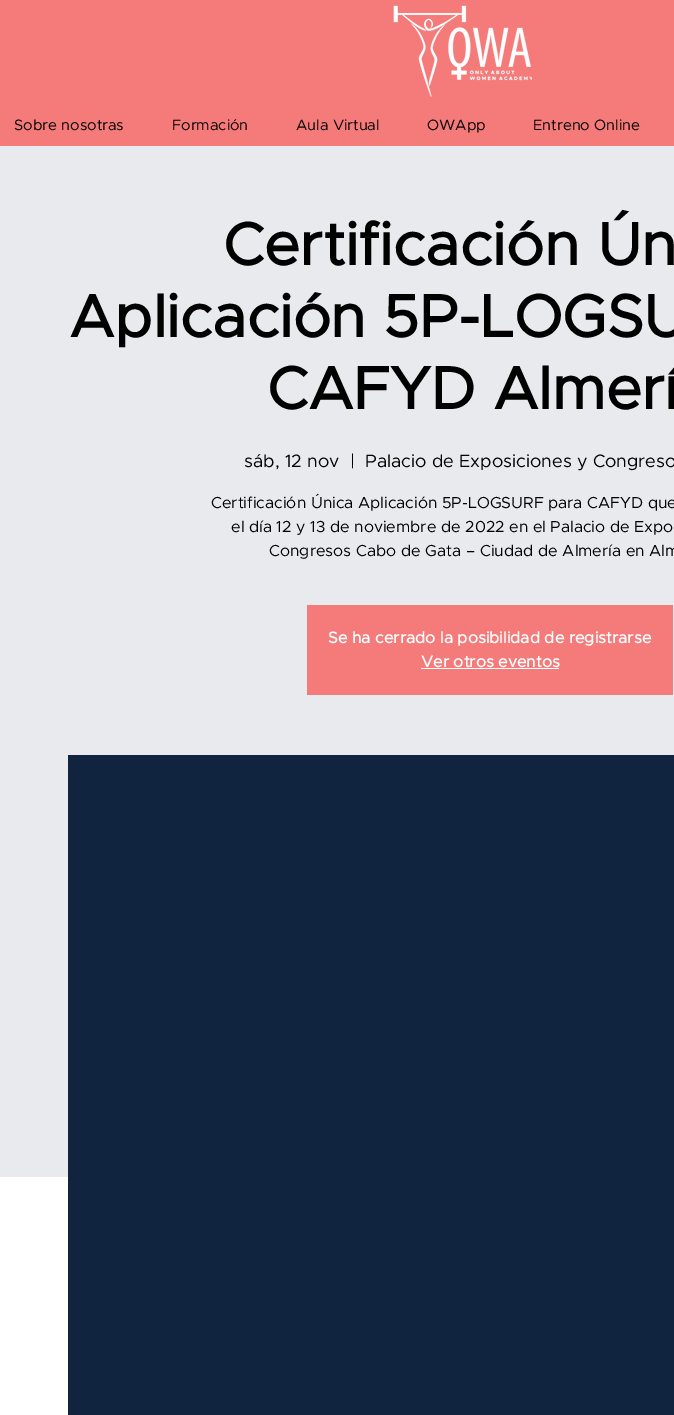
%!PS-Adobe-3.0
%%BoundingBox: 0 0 674 1415
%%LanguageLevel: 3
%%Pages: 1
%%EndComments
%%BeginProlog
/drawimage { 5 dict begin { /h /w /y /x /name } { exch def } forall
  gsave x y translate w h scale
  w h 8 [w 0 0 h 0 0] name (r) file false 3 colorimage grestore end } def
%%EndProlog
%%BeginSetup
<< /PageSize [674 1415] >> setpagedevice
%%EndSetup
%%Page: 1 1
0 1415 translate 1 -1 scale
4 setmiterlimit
1 setgray
0 0 674 1415 rectfill
0.961 0.478 0.478 setrgbcolor
0 0 674 146 rectfill
(images/1.raw) 393 5 139 92 drawimage
0.91 0.918 0.929 setrgbcolor
0 146 674 1031 rectfill
0.961 0.478 0.478 setrgbcolor
307 605 366 90 rectfill
1 setgray
421 668 138 1 rectfill
0.067 0.141 0.247 setrgbcolor
68 755 606 660 rectfill
/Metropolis-Regular [15 0 0 -15 0 0] selectfont
0 setgray
14 130 moveto (Sobre nosotras) show
172 130 moveto (Formación) show
296 130 moveto (Aula Virtual) show
427 130 moveto (OWApp) show
533 130 moveto (Entreno Online) show
/Metropolis-Bold [60 0 0 -60 0 0] selectfont
223 265 moveto (Certificación Ún) show
69 337 moveto (Aplicación 5P-LOGSU) show
267 409 moveto (CAFYD Almerí) show
/Metropolis-Regular [18 0 0 -18 0 0] selectfont
244 467 moveto (sáb, 12 nov) show
350 467 moveto (|) show
365 467 moveto (Palacio de Exposiciones y Congreso) show
/Metropolis-Regular [16 0 0 -16 0 0] selectfont
211 508 moveto (Certificación Única Aplicación 5P-LOGSURF para CAFYD que) show
231 532 moveto (el día 12 y 13 de noviembre de 2022 en el Palacio de Expo) show
269 556 moveto (Congresos Cabo de Gata – Ciudad de Almería en Alm) show
/Metropolis-Bold [16 0 0 -16 0 0] selectfont
1 setgray
328 643 moveto (Se ha cerrado la posibilidad de registrarse) show
421 667 moveto (Ver otros eventos) show
showpage
%%EOF
